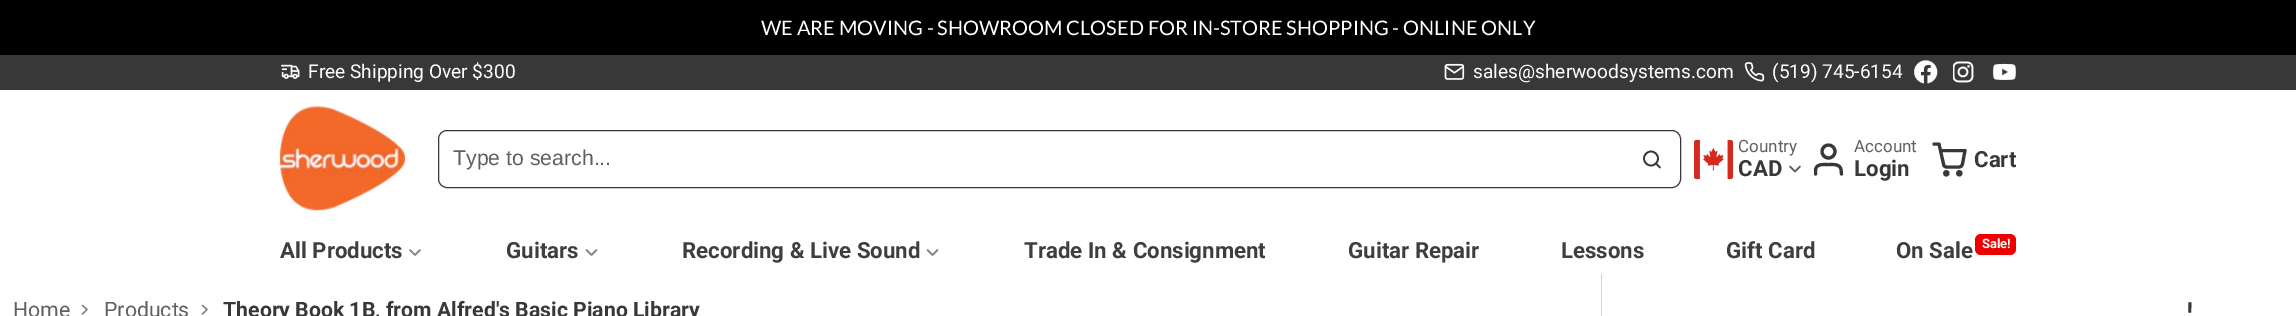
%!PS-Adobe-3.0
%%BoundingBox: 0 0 2296 316
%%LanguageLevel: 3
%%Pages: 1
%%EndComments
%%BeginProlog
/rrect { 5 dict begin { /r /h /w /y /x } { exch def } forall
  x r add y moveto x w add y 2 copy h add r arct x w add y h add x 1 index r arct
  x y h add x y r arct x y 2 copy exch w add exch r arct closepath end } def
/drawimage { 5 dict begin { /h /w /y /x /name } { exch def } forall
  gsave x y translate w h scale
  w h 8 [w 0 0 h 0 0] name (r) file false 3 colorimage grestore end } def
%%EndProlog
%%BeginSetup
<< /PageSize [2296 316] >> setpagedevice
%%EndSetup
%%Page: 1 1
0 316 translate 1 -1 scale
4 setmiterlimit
1 setgray
0 0 2296 316 rectfill
0 setgray
0 0 2296 55 rectfill
0.22 setgray
0 55 2296 35 rectfill
(images/1.raw) 280 64 20 15 drawimage
(images/2.raw) 1444 63 21 17 drawimage
(images/3.raw) 1744 62 21 20 drawimage
(images/4.raw) 1914 60 24 24 drawimage
(images/5.raw) 1953 61 21 22 drawimage
(images/6.raw) 1993 63 23 17 drawimage
(images/7.raw) 279 106 126 106 drawimage
438.5 130.5 1242 57 8.5 rrect stroke
1.7 setlinewidth
newpath 1651 158.5 7 0 360 arc closepath stroke
1 setlinecap
1 setlinejoin
newpath 1660 167.5 moveto 1656 163.5 lineto stroke
(images/8.raw) 1694 140 39 39 drawimage
0.376 setgray
1.6 setlinewidth
newpath 1790 166.5 moveto 1795 171.5 lineto 1800 166.5 lineto stroke
0.22 setgray
3.1 setlinewidth
newpath 1841.5 174 moveto 1841 169.5 lineto 1840 163.5 1833 164.5 1828.5 164.5 curveto 1823.5 164.5 1816.5 163.5 1815.5 169.5 curveto 1815.5 174 lineto stroke
0 setlinecap
0 setlinejoin
newpath 1828.5 151.5 6.5 0 360 arc closepath stroke
newpath 1946.3 173.3 1.6 0 360 arc closepath stroke
newpath 1959.3 173.3 1.6 0 360 arc closepath stroke
1 setlinecap
1 setlinejoin
newpath 1934 144 moveto 1939 144 lineto 1943.5 164 lineto 1943.5 166 1945 167 1946.5 167 curveto 1959 167 lineto 1960.5 167 1962 166 1962.5 164 curveto 1965 150.5 lineto 1941.5 150.5 lineto stroke
0.514 setgray
1.6 setlinewidth
newpath 410 250 moveto 415 255 lineto 420 250 lineto stroke
newpath 586.5 250 moveto 591.5 255 lineto 596.5 250 lineto stroke
newpath 927.5 250 moveto 932.5 255 lineto 937.5 250 lineto stroke
0.925 0 0 setrgbcolor
1975 234 41 21 6 rrect fill
0.82 setgray
1601 274 1 42 rectfill
0.502 setgray
1.3 setlinewidth
newpath 82.5 314 moveto 87 309.5 lineto 82.5 305.5 lineto stroke
newpath 202.5 314 moveto 207 309.5 lineto 202.5 305.5 lineto stroke
/Lato-Regular [20 0 0 -20 0 0] selectfont
1 setgray
761 35 moveto (WE ARE MOVING - SHOWROOM CLOSED FOR IN-STORE SHOPPING - ONLINE ONLY) show
/Roboto-Regular [19.1 0 0 -19.1 0 0] selectfont
308 78 moveto (Free Shipping Over $300) show
1473 78 moveto (sales@sherwoodsystems.com) show
1772 78 moveto (\(519\) 745-6154) show
/LiberationSans-Regular [21.25 0 0 -21.25 0 0] selectfont
0.376 setgray
453 165 moveto (Type to search...) show
/Roboto-Regular [17 0 0 -17 0 0] selectfont
1738 152 moveto (Country) show
/Roboto-Bold [22.25 0 0 -22.25 0 0] selectfont
0.22 setgray
1738 176 moveto (CAD) show
/Roboto-Regular [17 0 0 -17 0 0] selectfont
0.376 setgray
1854 152 moveto (Account) show
/Roboto-Bold [22.25 0 0 -22.25 0 0] selectfont
0.22 setgray
1854 176 moveto (Login) show
1974 167 moveto (Cart) show
0.243 setgray
280 258 moveto (All Products) show
506 258 moveto (Guitars) show
682 258 moveto (Recording & Live Sound) show
1024 258 moveto (Trade In & Consignment) show
1348 258 moveto (Guitar Repair) show
1561 258 moveto (Lessons) show
1726 258 moveto (Gift Card) show
1896 258 moveto (On Sale) show
/Roboto-Bold [13 0 0 -13 0 0] selectfont
1 setgray
1982 248 moveto (Sale!) show
/Roboto-Regular [21.25 0 0 -21.25 0 0] selectfont
0.376 setgray
13 317 moveto (Home) show
104 317 moveto (Products) show
/Roboto-Bold [21.25 0 0 -21.25 0 0] selectfont
0.22 setgray
223 317 moveto (Theory Book 1B, from Alfred's Basic Piano Library) show
/Roboto-Regular [45 0 0 -45 0 0] selectfont
2186 336 moveto (') show
showpage
%%EOF
